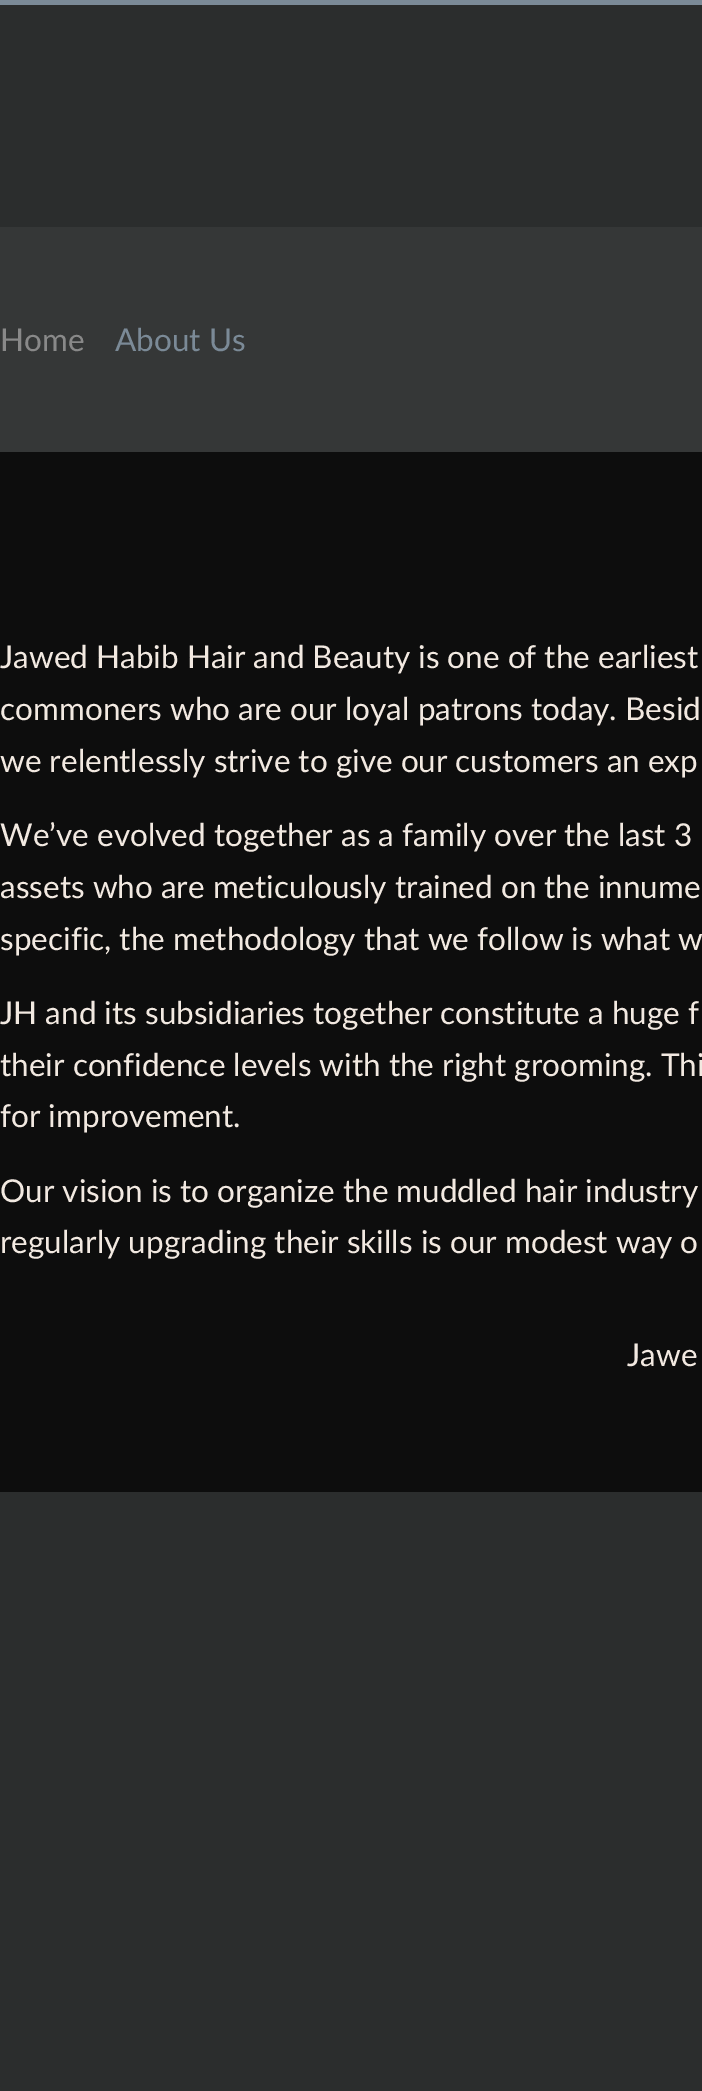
%!PS-Adobe-3.0
%%BoundingBox: 0 0 702 2091
%%LanguageLevel: 3
%%Pages: 1
%%EndComments
%%BeginProlog
%%EndProlog
%%BeginSetup
<< /PageSize [702 2091] >> setpagedevice
%%EndSetup
%%Page: 1 1
0 2091 translate 1 -1 scale
4 setmiterlimit
0.169 0.176 0.176 setrgbcolor
0 0 702 2091 rectfill
0.482 0.541 0.592 setrgbcolor
0 0 702 5 rectfill
0.208 0.216 0.216 setrgbcolor
0 227 702 225 rectfill
0.051 setgray
0 452 702 1040 rectfill
/Lato-Regular [31.5 0 0 -31.5 0 0] selectfont
0.537 setgray
0 351 moveto (Home) show
0.482 0.541 0.592 setrgbcolor
115 351 moveto (About Us) show
0.949 0.914 0.882 setrgbcolor
0 668 moveto (Jawed Habib Hair and Beauty is one of the earliest) show
0 720 moveto (commoners who are our loyal patrons today. Besid) show
0 772 moveto (we relentlessly strive to give our customers an exp) show
0 846 moveto (We’ve evolved together as a family over the last 3) show
0 898 moveto (assets who are meticulously trained on the innume) show
0 950 moveto (specific, the methodology that we follow is what w) show
0 1024 moveto (JH and its subsidiaries together constitute a huge f) show
0 1076 moveto (their confidence levels with the right grooming. Thi) show
0 1127 moveto (for improvement.) show
0 1202 moveto (Our vision is to organize the muddled hair industry) show
0 1253 moveto (regularly upgrading their skills is our modest way o) show
627 1366 moveto (Jawe) show
showpage
%%EOF
